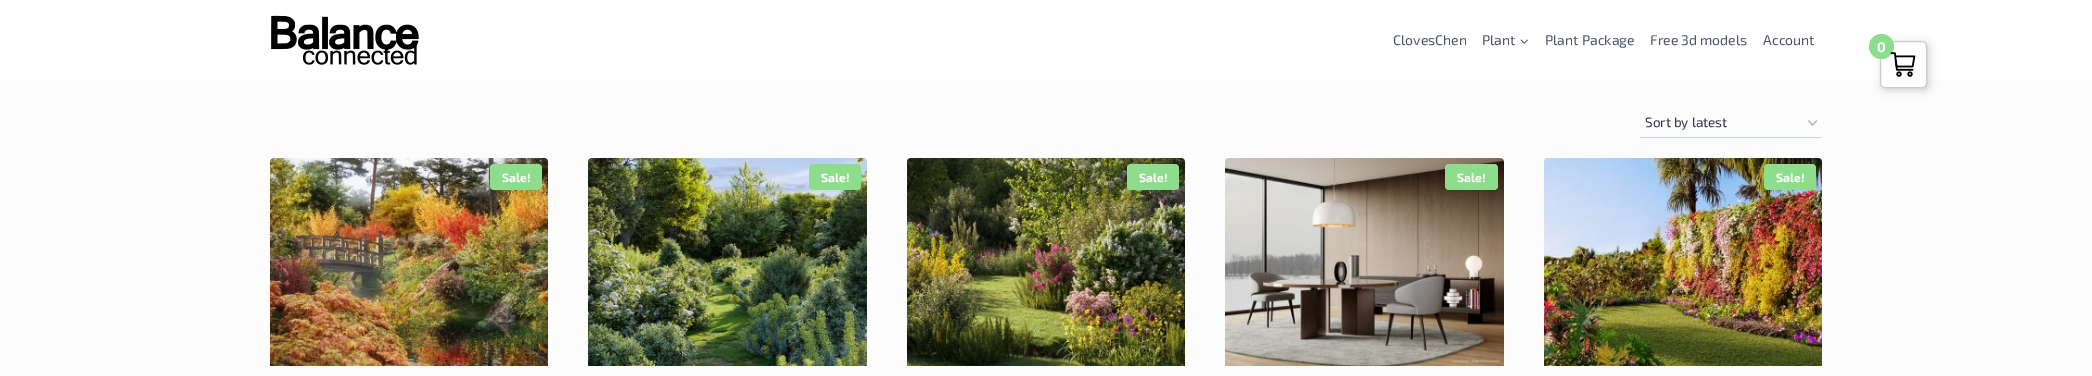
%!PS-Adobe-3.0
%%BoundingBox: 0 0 2092 376
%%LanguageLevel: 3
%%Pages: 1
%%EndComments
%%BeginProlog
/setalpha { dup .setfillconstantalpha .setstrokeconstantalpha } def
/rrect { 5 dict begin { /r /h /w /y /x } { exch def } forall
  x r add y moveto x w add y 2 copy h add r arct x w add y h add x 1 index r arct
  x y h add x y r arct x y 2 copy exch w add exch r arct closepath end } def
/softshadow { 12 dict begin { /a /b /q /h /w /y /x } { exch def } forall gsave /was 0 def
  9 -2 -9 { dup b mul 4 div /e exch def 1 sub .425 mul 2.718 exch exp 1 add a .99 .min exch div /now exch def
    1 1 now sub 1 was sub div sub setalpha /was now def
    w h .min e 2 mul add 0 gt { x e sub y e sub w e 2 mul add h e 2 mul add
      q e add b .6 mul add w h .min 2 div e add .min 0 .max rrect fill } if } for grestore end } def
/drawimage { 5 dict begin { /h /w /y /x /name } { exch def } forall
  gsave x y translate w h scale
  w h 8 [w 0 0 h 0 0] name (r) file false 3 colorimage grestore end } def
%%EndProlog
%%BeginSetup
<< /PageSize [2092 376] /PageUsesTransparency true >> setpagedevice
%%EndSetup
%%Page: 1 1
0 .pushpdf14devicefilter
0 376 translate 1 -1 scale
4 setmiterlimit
0.988 setgray
0 0 2092 376 rectfill
1 setgray
0 0 2092 80 rectfill
(images/1.raw) 271 15 148 50 drawimage
(images/2.raw) 1520 39 8 5 drawimage
0.733 setgray
1.4 setlinewidth
newpath 1808.5 120.5 moveto 1812.5 125 lineto 1817 120.5 lineto stroke
0.796 0.835 0.878 setrgbcolor
1640 137 182 1 rectfill
(images/3.raw) 270 158 278 208 drawimage
0.553 0.867 0.549 setrgbcolor
490 164 52 26 4 rrect fill
(images/4.raw) 588 158 279 208 drawimage
809 164 52 26 4 rrect fill
(images/5.raw) 907 158 278 208 drawimage
1127 164 52 26 4 rrect fill
(images/6.raw) 1225 158 279 208 drawimage
1445 164 53 26 4 rrect fill
(images/7.raw) 1544 158 278 208 drawimage
1764 164 52 26 4 rrect fill
0.8 setgray
1882 43 47 47 5 4 1 softshadow
1 setgray
1880.5 41.5 46 46 4.5 rrect gsave fill grestore
0.8 setgray
1 setlinewidth
stroke
0.553 0.867 0.549 setrgbcolor
newpath 1881.5 46.5 12.5 0 360 arc closepath fill
(images/8.raw) 1890 52 26 25 drawimage
/Exo2-Regular [14 0 0 -14 0 0] selectfont
0.29 0.333 0.408 setrgbcolor
1393 45 moveto (ClovesChen) show
1482 45 moveto (Plant) show
1545 45 moveto (Plant Package) show
1650 45 moveto (Free 3d models) show
1763 45 moveto (Account) show
/Exo2-Regular [13.5 0 0 -13.5 0 0] selectfont
0.176 0.216 0.282 setrgbcolor
1645 127 moveto (Sort by latest) show
/Exo2-Bold [12 0 0 -12 0 0] selectfont
1 setgray
502 182 moveto (Sale!) show
821 182 moveto (Sale!) show
1139 182 moveto (Sale!) show
1457 182 moveto (Sale!) show
1776 182 moveto (Sale!) show
/Exo2-Bold [14 0 0 -14 0 0] selectfont
1877 52 moveto (0) show
.poppdf14devicefilter showpage
%%EOF
